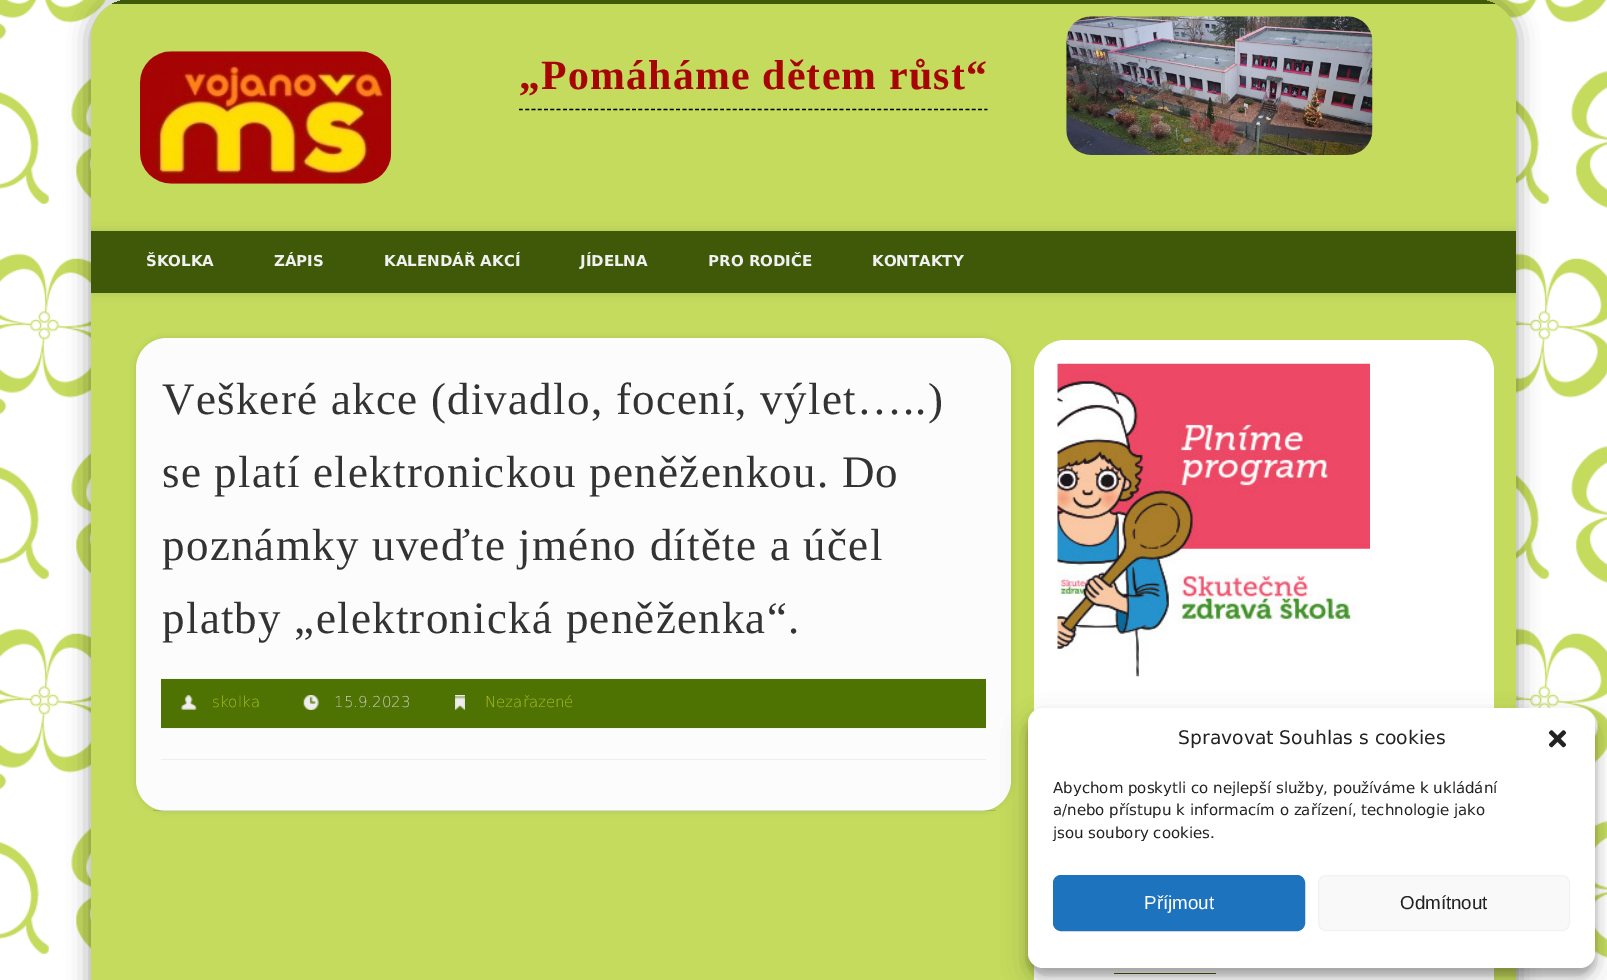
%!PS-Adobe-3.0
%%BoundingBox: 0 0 1607 980
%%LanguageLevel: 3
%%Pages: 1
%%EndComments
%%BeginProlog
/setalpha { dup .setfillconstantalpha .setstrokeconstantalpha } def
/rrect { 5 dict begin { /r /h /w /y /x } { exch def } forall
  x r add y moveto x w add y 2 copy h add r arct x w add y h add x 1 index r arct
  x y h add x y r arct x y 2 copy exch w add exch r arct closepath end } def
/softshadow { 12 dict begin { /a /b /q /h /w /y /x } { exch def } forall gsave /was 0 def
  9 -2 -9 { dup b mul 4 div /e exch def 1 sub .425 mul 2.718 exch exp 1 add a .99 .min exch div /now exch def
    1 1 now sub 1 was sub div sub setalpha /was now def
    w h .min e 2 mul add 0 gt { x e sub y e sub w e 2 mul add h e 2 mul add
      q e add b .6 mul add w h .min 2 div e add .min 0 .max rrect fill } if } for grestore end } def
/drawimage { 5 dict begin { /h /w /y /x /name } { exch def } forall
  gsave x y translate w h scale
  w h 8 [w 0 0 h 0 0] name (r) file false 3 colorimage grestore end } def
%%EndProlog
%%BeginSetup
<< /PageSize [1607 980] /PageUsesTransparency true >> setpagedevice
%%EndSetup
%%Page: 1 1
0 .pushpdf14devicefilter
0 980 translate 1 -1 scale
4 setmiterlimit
1 setgray
0 0 1607 980 rectfill
(images/1.raw) 0 0 1607 980 drawimage
0 setgray
91 0 1425 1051 38 11 0.4 softshadow
0.769 0.859 0.365 setrgbcolor
newpath 129 0 moveto 1478 0 lineto 1499 0 1516 17 1516 38 curveto 1516 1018 lineto 91 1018 lineto 91 38 lineto 91 17 108 0 129 0 curveto closepath fill
gsave
newpath 129 0 moveto 1478 0 lineto 1499 0 1516 17 1516 38 curveto 1516 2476 lineto 91 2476 lineto 91 38 lineto 91 17 108 0 129 0 curveto closepath clip newpath
0.251 0.349 0.031 setrgbcolor
110 0 1388 4 rectfill
grestore
(images/2.raw) 140 51 252 133 drawimage
0 setgray
1.2 setlinewidth
[3.75 2.54] 0 setdash
newpath 519 109.5 moveto 987.5 109.5 lineto stroke
(images/3.raw) 1066 16 307 139 drawimage
gsave
newpath 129 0 moveto 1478 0 lineto 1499 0 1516 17 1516 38 curveto 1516 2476 lineto 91 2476 lineto 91 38 lineto 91 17 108 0 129 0 curveto closepath clip newpath
91 231 1425 62 0 4.5 0.1 softshadow
grestore
0.251 0.349 0.031 setrgbcolor
91 231 1425 62 rectfill
0 setgray
136 338 875 473 31 3 0.1 softshadow
0.988 setgray
136 338 875 473 31 rrect fill
0.13 setalpha
0 setgray
153 810 843 1 rectfill
1 setalpha
0.31 0.451 0.008 setrgbcolor
161 679 825 49 rectfill
0.957 setgray
161 678 825 1 rectfill
161 728 825 1 rectfill
(images/4.raw) 181 695 16 15 drawimage
(images/5.raw) 303 695 16 15 drawimage
(images/6.raw) 455 695 10 15 drawimage
0.933 setgray
161 759 825 1 rectfill
1 setgray
1034 340 460 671 31 rrect fill
(images/7.raw) 1057 363 313 314 drawimage
0.251 0.349 0.031 setrgbcolor
1114 973 102 1 rectfill
0 setgray
1028 715 567 260 15 4 0.23 softshadow
1028 720 567 260 15 12.5 0.19 softshadow
1 setgray
1028 708 567 260 15 rrect fill
(images/8.raw) 1548 730 19 18 drawimage
0.118 0.451 0.745 setrgbcolor
1053.5 875.5 251 55 7.5 rrect gsave fill grestore
1 setlinewidth
[] 0 setdash
stroke
0.976 setgray
1318.5 875.5 251 55 7.5 rrect gsave fill grestore
0.949 setgray
stroke
/LiberationSerif-Bold [41.75 0 0 -41.75 0 0] selectfont
0.655 0.02 0.012 setrgbcolor
519 89 moveto 1.25 0 („Pomáháme dětem růst“) ashow
/DejaVuSans-Bold [15 0 0 -15 0 0] selectfont
0.941 setgray
146 266 moveto (ŠKOLKA) show
274 266 moveto (ZÁPIS) show
384 266 moveto (KALENDÁŘ AKCÍ) show
580 266 moveto (JÍDELNA) show
708 266 moveto (PRO RODIČE) show
872 266 moveto (KONTAKTY) show
/LiberationSerif-Regular [45 0 0 -45 0 0] selectfont
0.2 setgray
162 414 moveto 1.25 0 (Veškeré akce \(divadlo, focení, výlet…..\)) ashow
162 487 moveto 1.25 0 (se platí elektronickou peněženkou. Do) ashow
162 560 moveto 1.25 0 (poznámky uveďte jméno dítěte a účel) ashow
162 633 moveto 1.25 0 (platby „elektronická peněženka“.) ashow
/DejaVuSans-ExtraLight [15 0 0 -15 0 0] selectfont
0.678 0.749 0.129 setrgbcolor
212 707 moveto (skolka) show
0.8 setgray
334 707 moveto (15.9.2023) show
0.678 0.749 0.129 setrgbcolor
485 707 moveto (Nezařazené) show
/DejaVuSans-Regular [18.75 0 0 -18.75 0 0] selectfont
0.133 setgray
1178 744 moveto (Spravovat Souhlas s cookies) show
/DejaVuSans-Regular [15 0 0 -15 0 0] selectfont
1053 793 moveto (Abychom poskytli co nejlepší služby, používáme k ukládání) show
1053 815 moveto (a/nebo přístupu k informacím o zařízení, technologie jako) show
1053 838 moveto (jsou soubory cookies.) show
/LiberationSans-Regular [18.75 0 0 -18.75 0 0] selectfont
1 setgray
1144 909 moveto (Příjmout) show
0.133 setgray
1400 909 moveto (Odmítnout) show
.poppdf14devicefilter showpage
%%EOF
